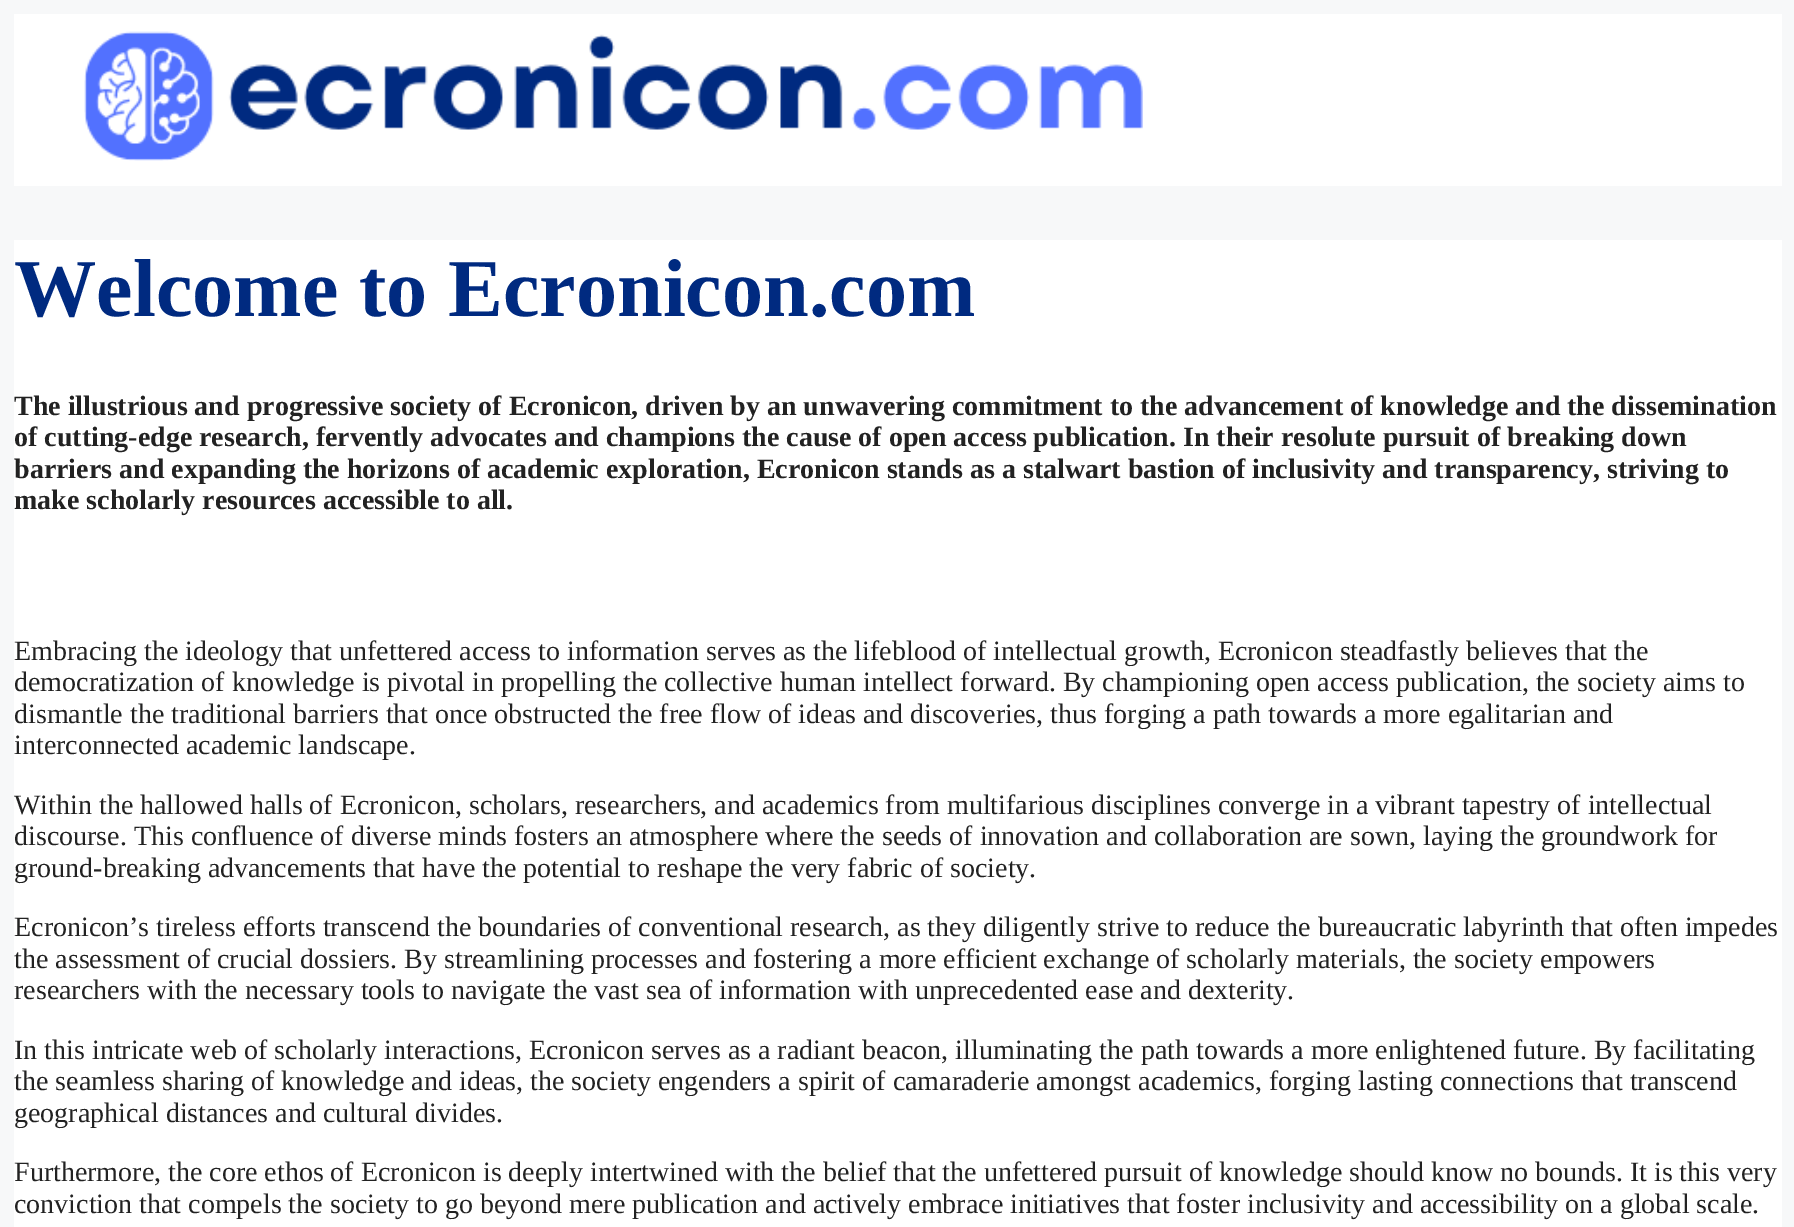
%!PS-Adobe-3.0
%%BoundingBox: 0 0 1794 1227
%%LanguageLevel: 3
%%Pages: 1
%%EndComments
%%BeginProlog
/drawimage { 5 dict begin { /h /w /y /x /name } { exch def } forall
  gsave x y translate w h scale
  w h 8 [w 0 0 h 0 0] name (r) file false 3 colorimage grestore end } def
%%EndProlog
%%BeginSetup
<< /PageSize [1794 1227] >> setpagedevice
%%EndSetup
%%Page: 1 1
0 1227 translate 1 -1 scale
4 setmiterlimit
0.969 0.973 0.976 setrgbcolor
0 0 1794 1227 rectfill
1 setgray
14 14 1768 172 rectfill
(images/1.raw) 84 31 1059 130 drawimage
14 240 1768 987 rectfill
/LiberationSerif-Bold [82.25 0 0 -82.25 0 0] selectfont
0 0.165 0.502 setrgbcolor
14 316 moveto (Welcome to Ecronicon.com) show
/LiberationSerif-Bold [28 0 0 -28 0 0] selectfont
0.133 setgray
14 415 moveto (The illustrious and progressive society of Ecronicon, driven by an unwavering commitment to the advancement of knowledge and the dissemination) show
14 446 moveto (of cutting-edge research, fervently advocates and champions the cause of open access publication. In their resolute pursuit of breaking down) show
14 478 moveto (barriers and expanding the horizons of academic exploration, Ecronicon stands as a stalwart bastion of inclusivity and transparency, striving to) show
14 509 moveto (make scholarly resources accessible to all.) show
/LiberationSerif-Regular [28 0 0 -28 0 0] selectfont
14 660 moveto (Embracing the ideology that unfettered access to information serves as the lifeblood of intellectual growth, Ecronicon steadfastly believes that the) show
14 691 moveto (democratization of knowledge is pivotal in propelling the collective human intellect forward. By championing open access publication, the society aims to) show
14 723 moveto (dismantle the traditional barriers that once obstructed the free flow of ideas and discoveries, thus forging a path towards a more egalitarian and) show
14 754 moveto (interconnected academic landscape.) show
14 814 moveto (Within the hallowed halls of Ecronicon, scholars, researchers, and academics from multifarious disciplines converge in a vibrant tapestry of intellectual) show
14 845 moveto (discourse. This confluence of diverse minds fosters an atmosphere where the seeds of innovation and collaboration are sown, laying the groundwork for) show
14 877 moveto (ground-breaking advancements that have the potential to reshape the very fabric of society.) show
14 936 moveto (Ecronicon’s tireless efforts transcend the boundaries of conventional research, as they diligently strive to reduce the bureaucratic labyrinth that often impedes) show
14 968 moveto (the assessment of crucial dossiers. By streamlining processes and fostering a more efficient exchange of scholarly materials, the society empowers) show
14 999 moveto (researchers with the necessary tools to navigate the vast sea of information with unprecedented ease and dexterity.) show
14 1059 moveto (In this intricate web of scholarly interactions, Ecronicon serves as a radiant beacon, illuminating the path towards a more enlightened future. By facilitating) show
14 1090 moveto (the seamless sharing of knowledge and ideas, the society engenders a spirit of camaraderie amongst academics, forging lasting connections that transcend) show
14 1122 moveto (geographical distances and cultural divides.) show
14 1181 moveto (Furthermore, the core ethos of Ecronicon is deeply intertwined with the belief that the unfettered pursuit of knowledge should know no bounds. It is this very) show
14 1213 moveto (conviction that compels the society to go beyond mere publication and actively embrace initiatives that foster inclusivity and accessibility on a global scale.) show
showpage
%%EOF
